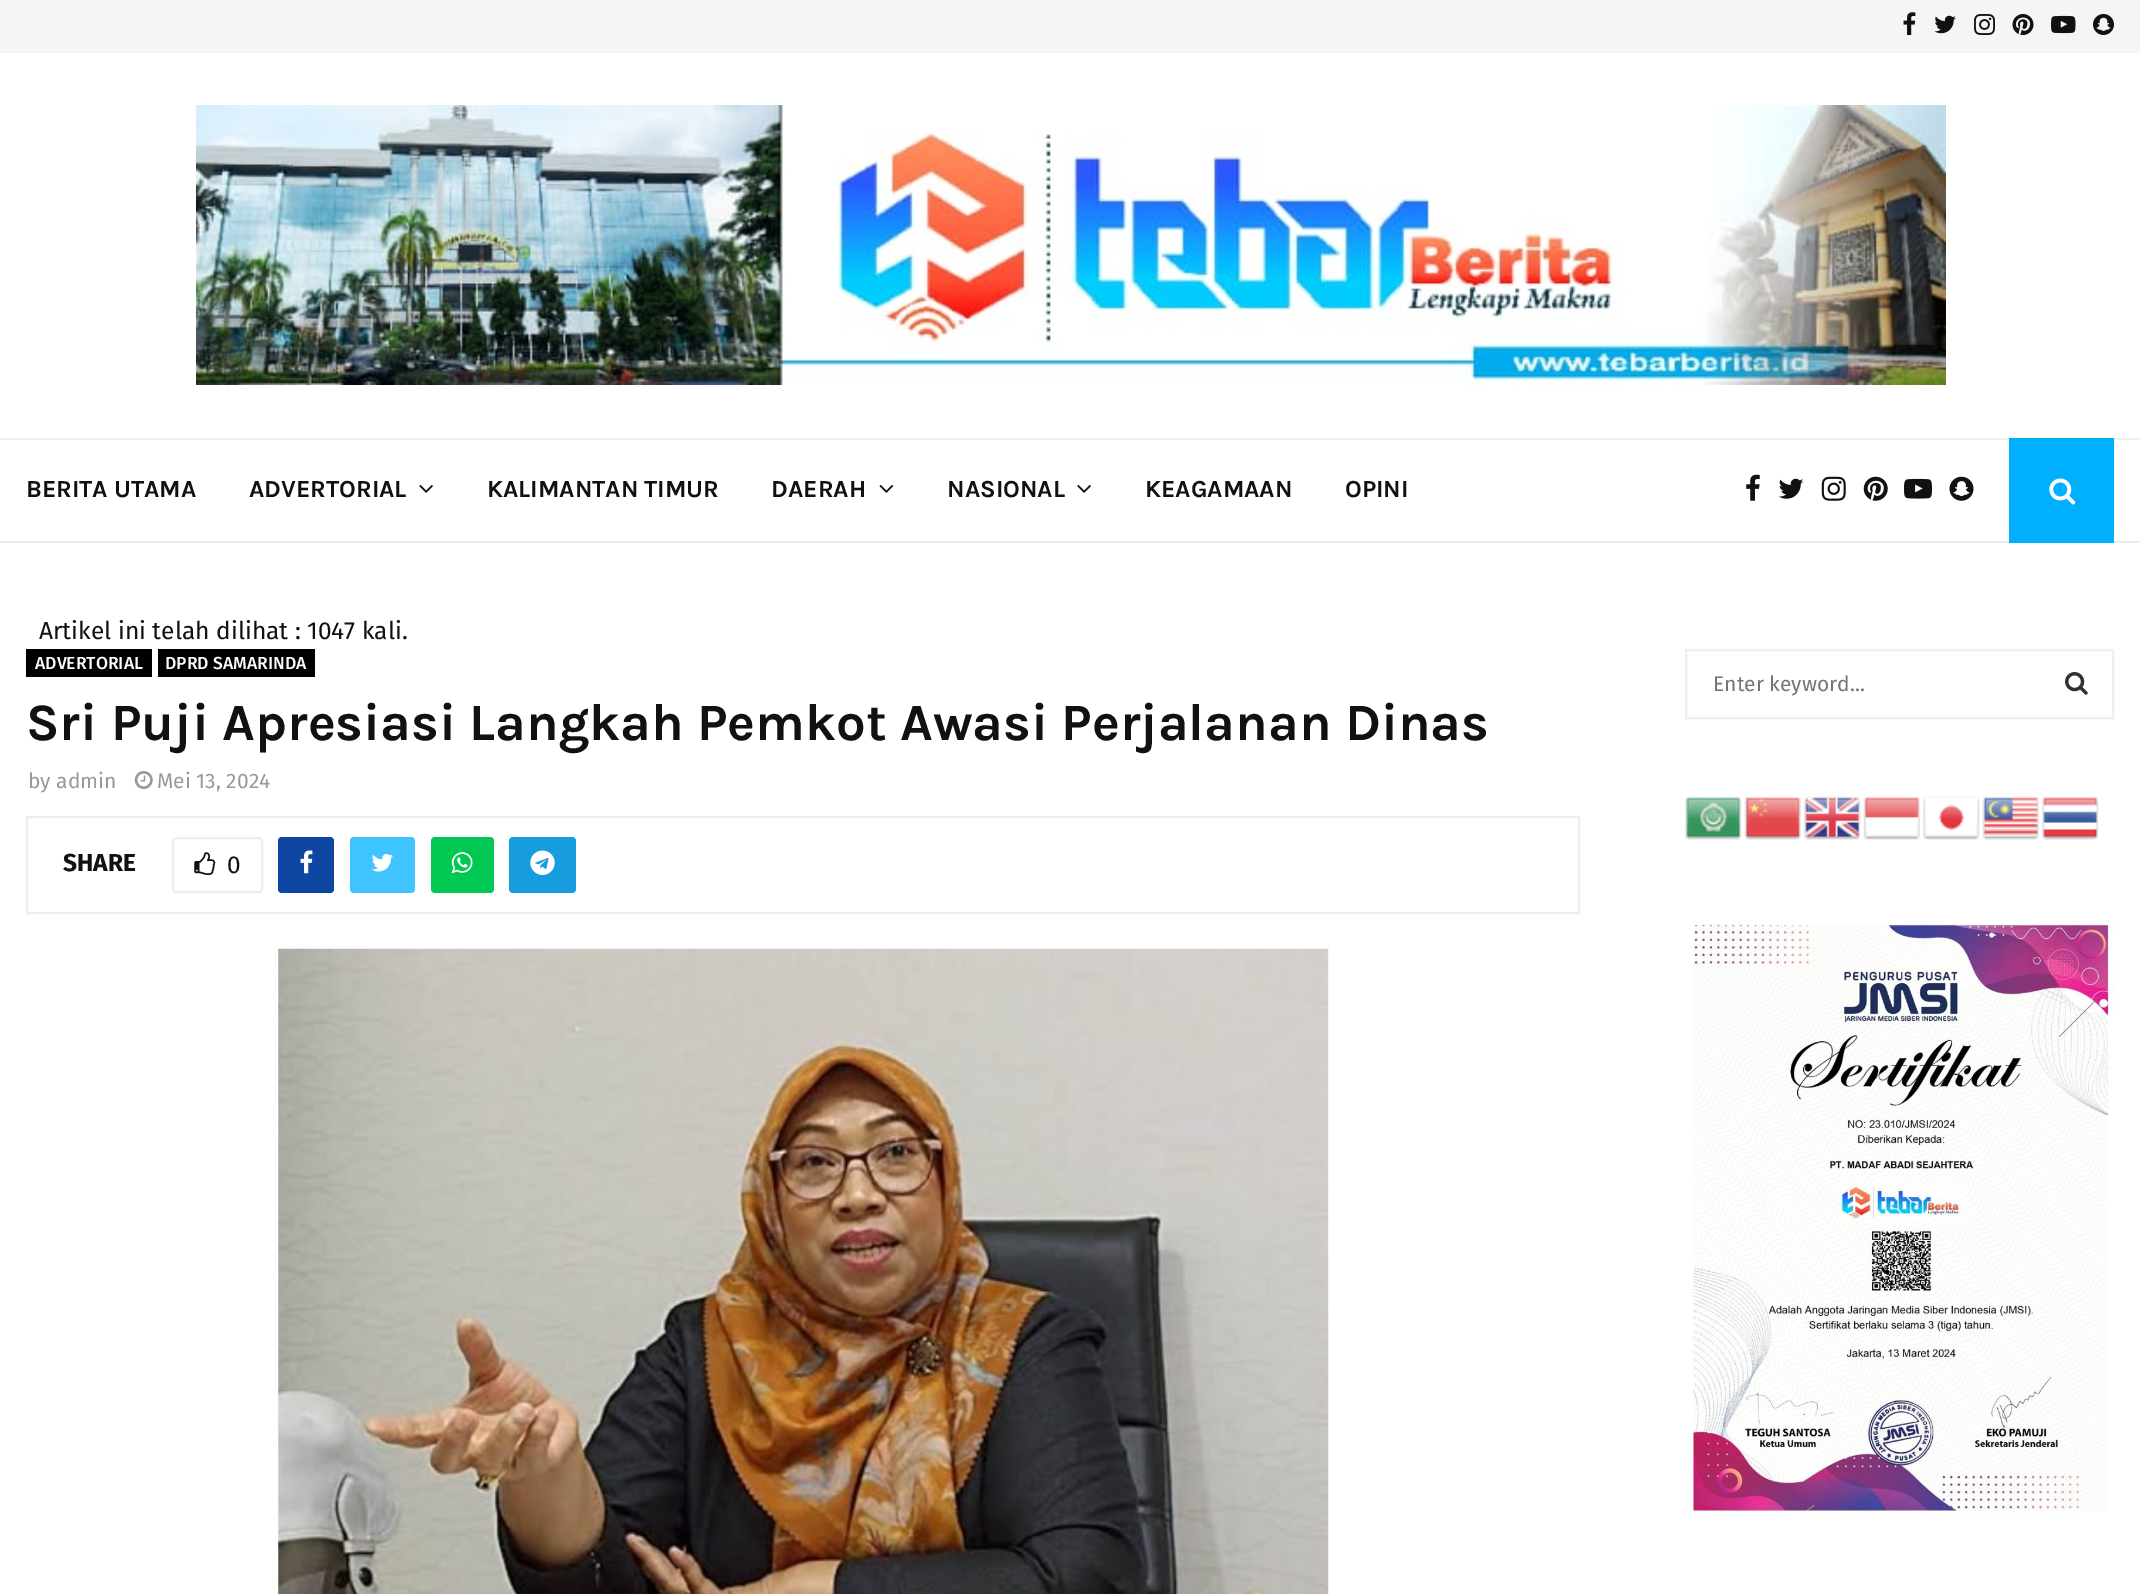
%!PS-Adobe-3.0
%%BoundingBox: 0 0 2140 1594
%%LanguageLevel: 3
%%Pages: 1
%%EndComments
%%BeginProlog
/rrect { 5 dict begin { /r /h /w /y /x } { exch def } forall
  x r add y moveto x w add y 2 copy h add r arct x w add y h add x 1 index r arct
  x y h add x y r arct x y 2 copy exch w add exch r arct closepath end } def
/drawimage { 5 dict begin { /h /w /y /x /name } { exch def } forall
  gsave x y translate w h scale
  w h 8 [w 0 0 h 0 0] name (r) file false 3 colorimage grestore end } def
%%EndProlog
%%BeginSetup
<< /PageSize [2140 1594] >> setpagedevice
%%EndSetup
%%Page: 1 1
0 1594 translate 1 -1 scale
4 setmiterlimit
1 setgray
0 0 2140 1594 rectfill
0.961 setgray
0 0 2140 53 rectfill
(images/1.raw) 1903 12 13 23 drawimage
(images/2.raw) 1934 15 22 19 drawimage
(images/3.raw) 1974 14 21 21 drawimage
(images/4.raw) 2012 14 22 21 drawimage
(images/5.raw) 2051 15 25 19 drawimage
(images/6.raw) 2093 14 21 21 drawimage
(images/7.raw) 196 105 1750 280 drawimage
0.925 setgray
0 541 2140 2 rectfill
0.933 setgray
0 438 2140 2 rectfill
(images/8.raw) 419 485 14 8 drawimage
(images/9.raw) 879 485 15 8 drawimage
(images/8.raw) 1077 485 14 8 drawimage
(images/10.raw) 1746 474 14 27 drawimage
(images/11.raw) 1778 478 26 21 drawimage
(images/12.raw) 1821 476 25 25 drawimage
(images/13.raw) 1863 476 25 25 drawimage
(images/14.raw) 1904 478 28 21 drawimage
(images/15.raw) 1949 476 25 25 drawimage
0 0.69 1 setrgbcolor
2009 438 105 105 rectfill
(images/16.raw) 2049 478 27 27 drawimage
0 setgray
26 649 126 28 rectfill
158 649 157 28 rectfill
(images/17.raw) 134 771 19 18 drawimage
0.933 setgray
2 setlinewidth
27 817 1552 96 rectstroke
173 838 89 54 3 rrect stroke
(images/18.raw) 194 852 22 23 drawimage
0.051 0.278 0.631 setrgbcolor
278 837 56 56 4 rrect fill
(images/19.raw) 300 850 13 24 drawimage
0.251 0.769 1 setrgbcolor
350 837 65 56 4 rrect fill
(images/20.raw) 371 854 22 18 drawimage
0 0.784 0.325 setrgbcolor
431 837 63 56 4 rrect fill
(images/21.raw) 451 852 22 22 drawimage
0.09 0.612 0.871 setrgbcolor
509 837 67 56 4 rrect fill
(images/22.raw) 530 850 25 25 drawimage
(images/23.raw) 278 948 1051 646 drawimage
0.933 setgray
1686 650 427 68 rectstroke
(images/24.raw) 2065 672 23 23 drawimage
(images/25.raw) 1685 796 57 44 drawimage
(images/26.raw) 1744 796 57 44 drawimage
(images/27.raw) 1804 796 57 44 drawimage
(images/28.raw) 1863 796 57 44 drawimage
(images/29.raw) 1923 796 57 44 drawimage
(images/30.raw) 1982 796 57 44 drawimage
(images/31.raw) 2042 796 57 44 drawimage
(images/32.raw) 1685 924 429 592 drawimage
/Karla-Bold [24.5 0 0 -24.5 0 0] selectfont
0.067 setgray
26 497 moveto (BERITA UTAMA) show
249 497 moveto (ADVERTORIAL) show
487 497 moveto (KALIMANTAN TIMUR) show
771 497 moveto (DAERAH) show
947 497 moveto (NASIONAL) show
1145 497 moveto (KEAGAMAAN) show
1345 497 moveto (OPINI) show
/FiraSans-Regular [24.5 0 0 -24.5 0 0] selectfont
39 639 moveto (Artikel ini telah dilihat : 1047 kali.) show
/FiraSans-Medium [17.5 0 0 -17.5 0 0] selectfont
1 setgray
35 669 moveto (ADVERTORIAL) show
165 669 moveto (DPRD SAMARINDA) show
/Karla-Bold [52.5 0 0 -52.5 0 0] selectfont
0.067 setgray
26 740 moveto (Sri Puji Apresiasi Langkah Pemkot Awasi Perjalanan Dinas) show
/FiraSans-Regular [21 0 0 -21 0 0] selectfont
0.6 setgray
28 788 moveto (by admin) show
157 788 moveto (Mei 13, 2024) show
/FiraSans-Bold [24.5 0 0 -24.5 0 0] selectfont
0.067 setgray
63 871 moveto (SHARE) show
/FiraSans-Regular [24.5 0 0 -24.5 0 0] selectfont
227 873 moveto (0) show
/FiraSans-Regular [21 0 0 -21 0 0] selectfont
0.459 setgray
1713 691 moveto (Enter keyword...) show
showpage
%%EOF
